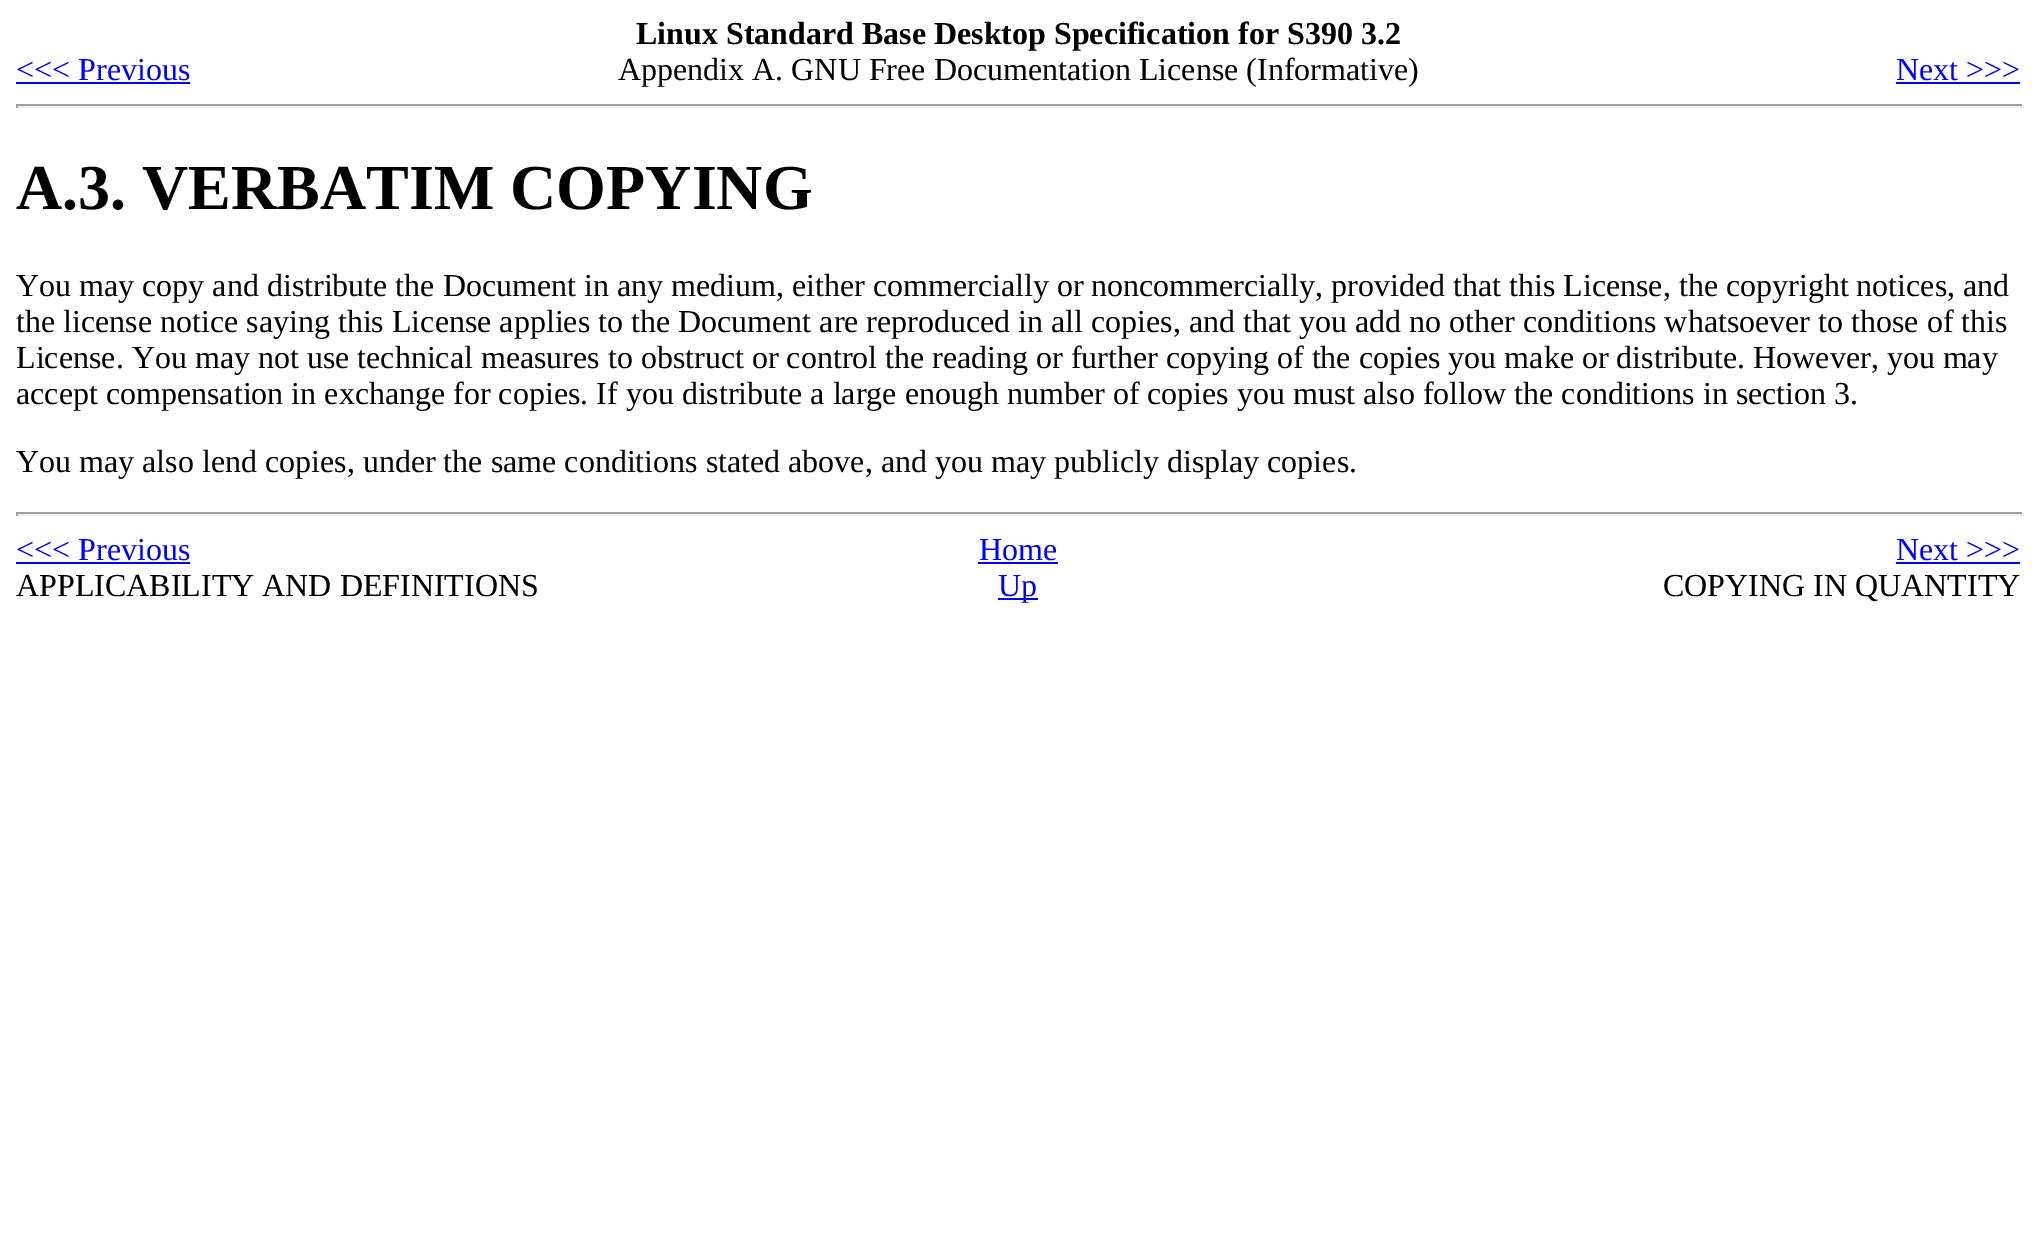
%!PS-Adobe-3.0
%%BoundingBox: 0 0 2036 1248
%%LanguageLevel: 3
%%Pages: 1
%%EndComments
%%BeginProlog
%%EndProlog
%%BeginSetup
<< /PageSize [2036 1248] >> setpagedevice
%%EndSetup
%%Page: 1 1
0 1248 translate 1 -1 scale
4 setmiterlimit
1 setgray
0 0 2036 1248 rectfill
0 0 1 setrgbcolor
16 82 174 2 rectfill
1896 82 124 2 rectfill
0.624 setgray
16 104 2008 2 rectfill
0.933 setgray
2022 104 2 4 rectfill
16 106 2008 2 rectfill
0.624 setgray
16 104 2 4 rectfill
16 512 2008 2 rectfill
0.933 setgray
2022 512 2 4 rectfill
16 514 2008 2 rectfill
0.624 setgray
16 512 2 4 rectfill
0 0 1 setrgbcolor
16 562 174 2 rectfill
978 562 80 2 rectfill
1896 562 124 2 rectfill
998 598 40 2 rectfill
/LiberationSerif-Bold [32 0 0 -32 0 0] selectfont
0 setgray
636 44 moveto (Linux Standard Base Desktop Specification for S390 3.2) show
/LiberationSerif-Regular [32 0 0 -32 0 0] selectfont
0 0 1 setrgbcolor
16 80 moveto (<<< Previous) show
0 setgray
618 80 moveto (Appendix A. GNU Free Documentation License \(Informative\)) show
0 0 1 setrgbcolor
1896 80 moveto (Next >>>) show
/LiberationSerif-Bold [64 0 0 -64 0 0] selectfont
0 setgray
16 209 moveto (A.3. VERBATIM COPYING) show
/LiberationSerif-Regular [32 0 0 -32 0 0] selectfont
16 296 moveto (You may copy and distribute the Document in any medium, either commercially or noncommercially, provided that this License, the copyright notices, and) show
16 332 moveto (the license notice saying this License applies to the Document are reproduced in all copies, and that you add no other conditions whatsoever to those of this) show
16 368 moveto (License. You may not use technical measures to obstruct or control the reading or further copying of the copies you make or distribute. However, you may) show
16 404 moveto (accept compensation in exchange for copies. If you distribute a large enough number of copies you must also follow the conditions in section 3.) show
16 472 moveto (You may also lend copies, under the same conditions stated above, and you may publicly display copies.) show
0 0 1 setrgbcolor
16 560 moveto (<<< Previous) show
979 560 moveto (Home) show
1896 560 moveto (Next >>>) show
0 setgray
16 596 moveto (APPLICABILITY AND DEFINITIONS) show
0 0 1 setrgbcolor
998 596 moveto (Up) show
0 setgray
1663 596 moveto (COPYING IN QUANTITY) show
showpage
%%EOF
